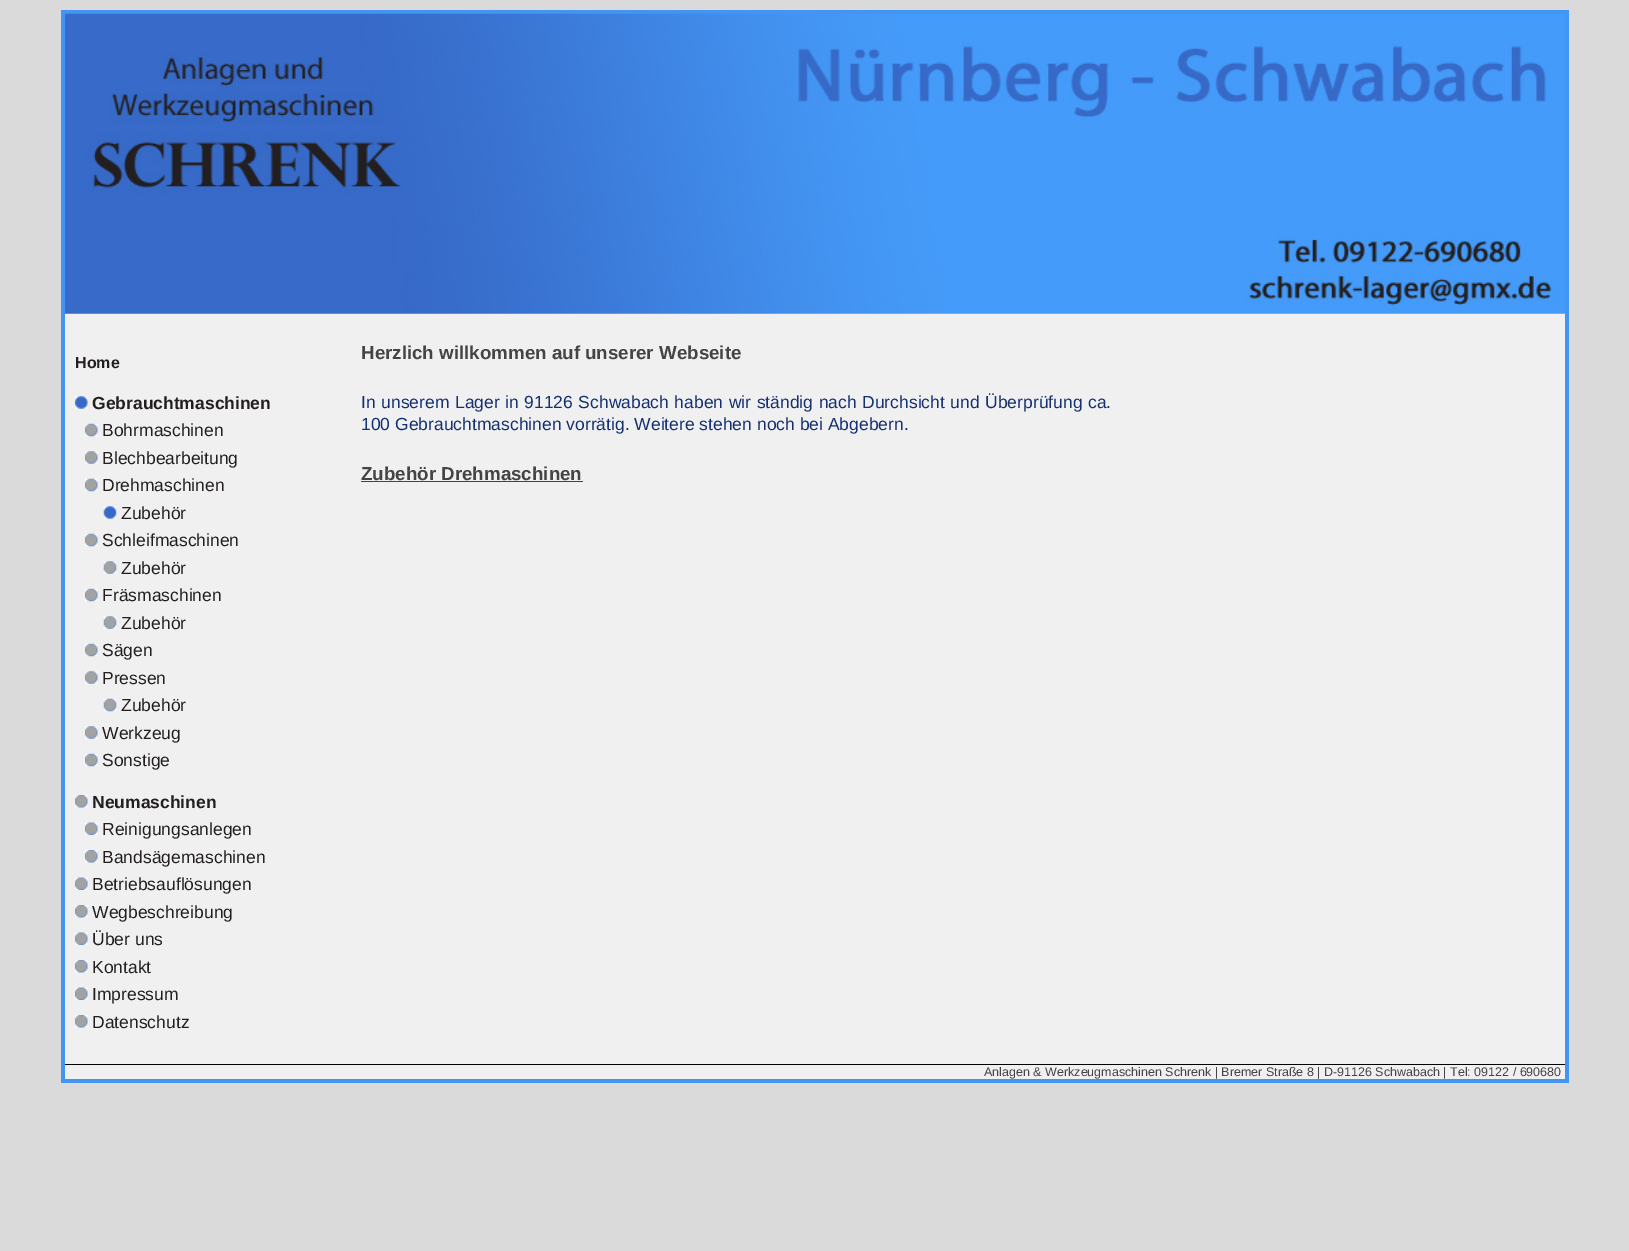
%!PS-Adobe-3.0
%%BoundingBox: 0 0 1629 1251
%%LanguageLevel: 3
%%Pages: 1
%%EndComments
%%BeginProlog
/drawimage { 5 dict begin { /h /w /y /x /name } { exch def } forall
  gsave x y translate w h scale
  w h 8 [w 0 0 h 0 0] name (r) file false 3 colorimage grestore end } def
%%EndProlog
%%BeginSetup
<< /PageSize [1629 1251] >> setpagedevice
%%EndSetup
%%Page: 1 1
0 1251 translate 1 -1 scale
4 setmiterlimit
0.855 setgray
0 0 1629 1251 rectfill
0.263 0.584 0.957 setrgbcolor
61 10 1508 1073 rectfill
0.941 setgray
65 313 1500 766 rectfill
(images/1.raw) 65 13 1500 301 drawimage
(images/2.raw) 75 396 13 13 drawimage
(images/3.raw) 85 423 13 14 drawimage
(images/4.raw) 85 451 13 13 drawimage
(images/3.raw) 85 478 13 14 drawimage
(images/5.raw) 103 506 14 13 drawimage
(images/3.raw) 85 533 13 14 drawimage
(images/6.raw) 103 561 14 13 drawimage
(images/3.raw) 85 588 13 14 drawimage
(images/6.raw) 103 616 14 13 drawimage
(images/3.raw) 85 643 13 14 drawimage
(images/4.raw) 85 671 13 13 drawimage
(images/7.raw) 103 698 14 14 drawimage
(images/4.raw) 85 726 13 13 drawimage
(images/3.raw) 85 753 13 14 drawimage
(images/8.raw) 75 795 13 13 drawimage
(images/9.raw) 85 822 13 13 drawimage
(images/8.raw) 85 850 13 13 drawimage
(images/9.raw) 75 877 13 13 drawimage
(images/8.raw) 75 905 13 13 drawimage
(images/9.raw) 75 932 13 13 drawimage
(images/8.raw) 75 960 13 13 drawimage
(images/9.raw) 75 987 13 13 drawimage
(images/8.raw) 75 1015 13 13 drawimage
0.267 setgray
361 481 222 1 rectfill
0 setgray
65 1064 1500 1 rectfill
/LiberationSans-Bold [16 0 0 -16 0 0] selectfont
0.137 0.122 0.125 setrgbcolor
75 368 moveto (Home) show
/LiberationSans-Bold [17.5 0 0 -17.5 0 0] selectfont
92 409 moveto (Gebrauchtmaschinen) show
/LiberationSans-Regular [17.5 0 0 -17.5 0 0] selectfont
102 436 moveto (Bohrmaschinen) show
102 464 moveto (Blechbearbeitung) show
102 491 moveto (Drehmaschinen) show
121 519 moveto (Zubehör) show
102 546 moveto (Schleifmaschinen) show
121 574 moveto (Zubehör) show
102 601 moveto (Fräsmaschinen) show
121 629 moveto (Zubehör) show
102 656 moveto (Sägen) show
102 684 moveto (Pressen) show
121 711 moveto (Zubehör) show
102 739 moveto (Werkzeug) show
102 766 moveto (Sonstige) show
/LiberationSans-Bold [17.5 0 0 -17.5 0 0] selectfont
92 808 moveto (Neumaschinen) show
/LiberationSans-Regular [17.5 0 0 -17.5 0 0] selectfont
102 835 moveto (Reinigungsanlegen) show
102 863 moveto (Bandsägemaschinen) show
92 890 moveto (Betriebsauflösungen) show
92 918 moveto (Wegbeschreibung) show
92 945 moveto (Über uns) show
92 973 moveto (Kontakt) show
92 1000 moveto (Impressum) show
92 1028 moveto (Datenschutz) show
/LiberationSans-Bold [18.75 0 0 -18.75 0 0] selectfont
0.267 setgray
361 359 moveto (Herzlich willkommen auf unserer Webseite) show
/LiberationSans-Regular [17.5 0 0 -17.5 0 0] selectfont
0.078 0.188 0.439 setrgbcolor
361 408 moveto 0.7 0 32 (In unserem Lager in 91126 Schwabach haben wir ständig nach Durchsicht und Überprüfung ca.) widthshow
361 430 moveto (100 Gebrauchtmaschinen vorrätig. Weitere stehen noch bei Abgebern.) show
/LiberationSans-Bold [18.75 0 0 -18.75 0 0] selectfont
0.267 setgray
361 480 moveto (Zubehör Drehmaschinen) show
/LiberationSans-Regular [12.5 0 0 -12.5 0 0] selectfont
984 1076 moveto (Anlagen & Werkzeugmaschinen Schrenk | Bremer Straße 8 | D-91126 Schwabach | Tel: 09122 / 690680) show
showpage
%%EOF
